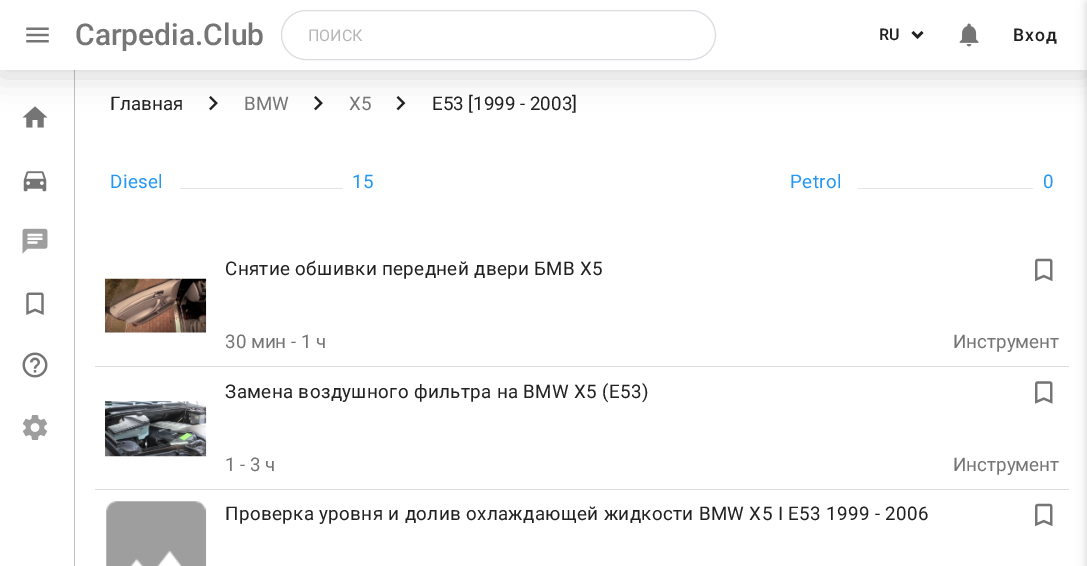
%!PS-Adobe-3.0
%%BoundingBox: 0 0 1087 566
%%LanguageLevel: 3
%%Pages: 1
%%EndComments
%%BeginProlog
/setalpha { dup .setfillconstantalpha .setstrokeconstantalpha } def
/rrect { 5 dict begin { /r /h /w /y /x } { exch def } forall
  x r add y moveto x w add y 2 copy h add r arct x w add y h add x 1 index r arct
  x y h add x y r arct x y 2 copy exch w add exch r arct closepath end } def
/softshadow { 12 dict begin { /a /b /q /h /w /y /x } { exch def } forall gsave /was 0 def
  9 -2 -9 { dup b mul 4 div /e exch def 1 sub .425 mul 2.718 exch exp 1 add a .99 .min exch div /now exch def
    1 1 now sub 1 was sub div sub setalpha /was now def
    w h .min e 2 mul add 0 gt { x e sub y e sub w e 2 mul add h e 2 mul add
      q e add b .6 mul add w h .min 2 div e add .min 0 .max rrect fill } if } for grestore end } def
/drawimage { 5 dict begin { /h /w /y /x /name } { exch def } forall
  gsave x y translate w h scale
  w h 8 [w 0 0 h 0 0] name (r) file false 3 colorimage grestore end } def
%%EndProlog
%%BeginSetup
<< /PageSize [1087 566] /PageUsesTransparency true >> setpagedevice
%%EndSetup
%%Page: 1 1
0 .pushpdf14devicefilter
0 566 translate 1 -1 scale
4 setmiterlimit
1 setgray
0 0 1087 566 rectfill
0.753 setgray
74 70 1 496 rectfill
(images/3.raw) 22 106 26 22 drawimage
(images/9.raw) 209 96 9 15 drawimage
(images/9.raw) 314 96 9 15 drawimage
(images/10.raw) 396 96 10 15 drawimage
0 setgray
0 6 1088 70 0 15.5 0.15 softshadow
1 setgray
0 0 1087 70 rectfill
(images/1.raw) 26 27 23 16 drawimage
0.855 0.863 0.878 setrgbcolor
281.5 10.5 434 49 24.5 rrect stroke
0.129 setgray
2.5 setlinewidth
newpath 912.5 32 moveto 917.5 37 lineto 922.5 32 lineto stroke
(images/2.raw) 959 23 20 24 drawimage
0 setgray
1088 3 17 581 0 6 0.12 softshadow
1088 3 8 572 0 3 0.16 softshadow
(images/4.raw) 23 171 24 21 drawimage
(images/5.raw) 22 228 26 26 drawimage
(images/6.raw) 26 292 18 23 drawimage
(images/7.raw) 22 352 26 26 drawimage
(images/8.raw) 22 415 26 25 drawimage
0.894 setgray
180 188 163 1 rectfill
858 188 175 1 rectfill
0.871 setgray
95 366 974 1 rectfill
(images/11.raw) 105 278 102 55 drawimage
(images/12.raw) 1035 258 18 24 drawimage
95 489 974 1 rectfill
(images/13.raw) 105 401 102 56 drawimage
(images/14.raw) 1035 381 18 23 drawimage
(images/15.raw) 106 501 101 65 drawimage
(images/12.raw) 1035 503 18 24 drawimage
/Roboto-Medium [30 0 0 -30 0 0] selectfont
0.459 setgray
75 45 moveto (Carpedia.Club) show
/Roboto-Regular [16 0 0 -16 0 0] selectfont
0.714 setgray
308 41 moveto (ПОИСК) show
/Roboto-Medium [16 0 0 -16 0 0] selectfont
0.129 setgray
879 40 moveto (RU) show
/Roboto-Medium [17.5 0 0 -17.5 0 0] selectfont
1013 41 moveto 1 0 (Вход) ashow
/Roboto-Regular [18.75 0 0 -18.75 0 0] selectfont
110 110 moveto (Главная) show
0.459 setgray
244 110 moveto (BMW) show
349 110 moveto (X5) show
0.129 setgray
432 110 moveto (E53 [1999 - 2003]) show
0.141 0.592 0.953 setrgbcolor
110 188 moveto 0.38 0 (Diesel) ashow
352 188 moveto 0.38 0 (15) ashow
790 188 moveto 0.38 0 (Petrol) ashow
1043 188 moveto 0.38 0 (0) ashow
0.129 setgray
225 275 moveto 0.38 0 (Снятие обшивки передней двери БМВ Х5) ashow
0.459 setgray
225 348 moveto (30 мин - 1 ч) show
953 348 moveto (Инструмент) show
0.129 setgray
225 398 moveto 0.38 0 (Замена воздушного фильтра на BMW X5 \(E53\)) ashow
0.459 setgray
225 471 moveto (1 - 3 ч) show
953 471 moveto (Инструмент) show
0.129 setgray
225 520 moveto 0.38 0 (Проверка уровня и долив охлаждающей жидкости BMW X5 I E53 1999 - 2006) ashow
.poppdf14devicefilter showpage
%%EOF
